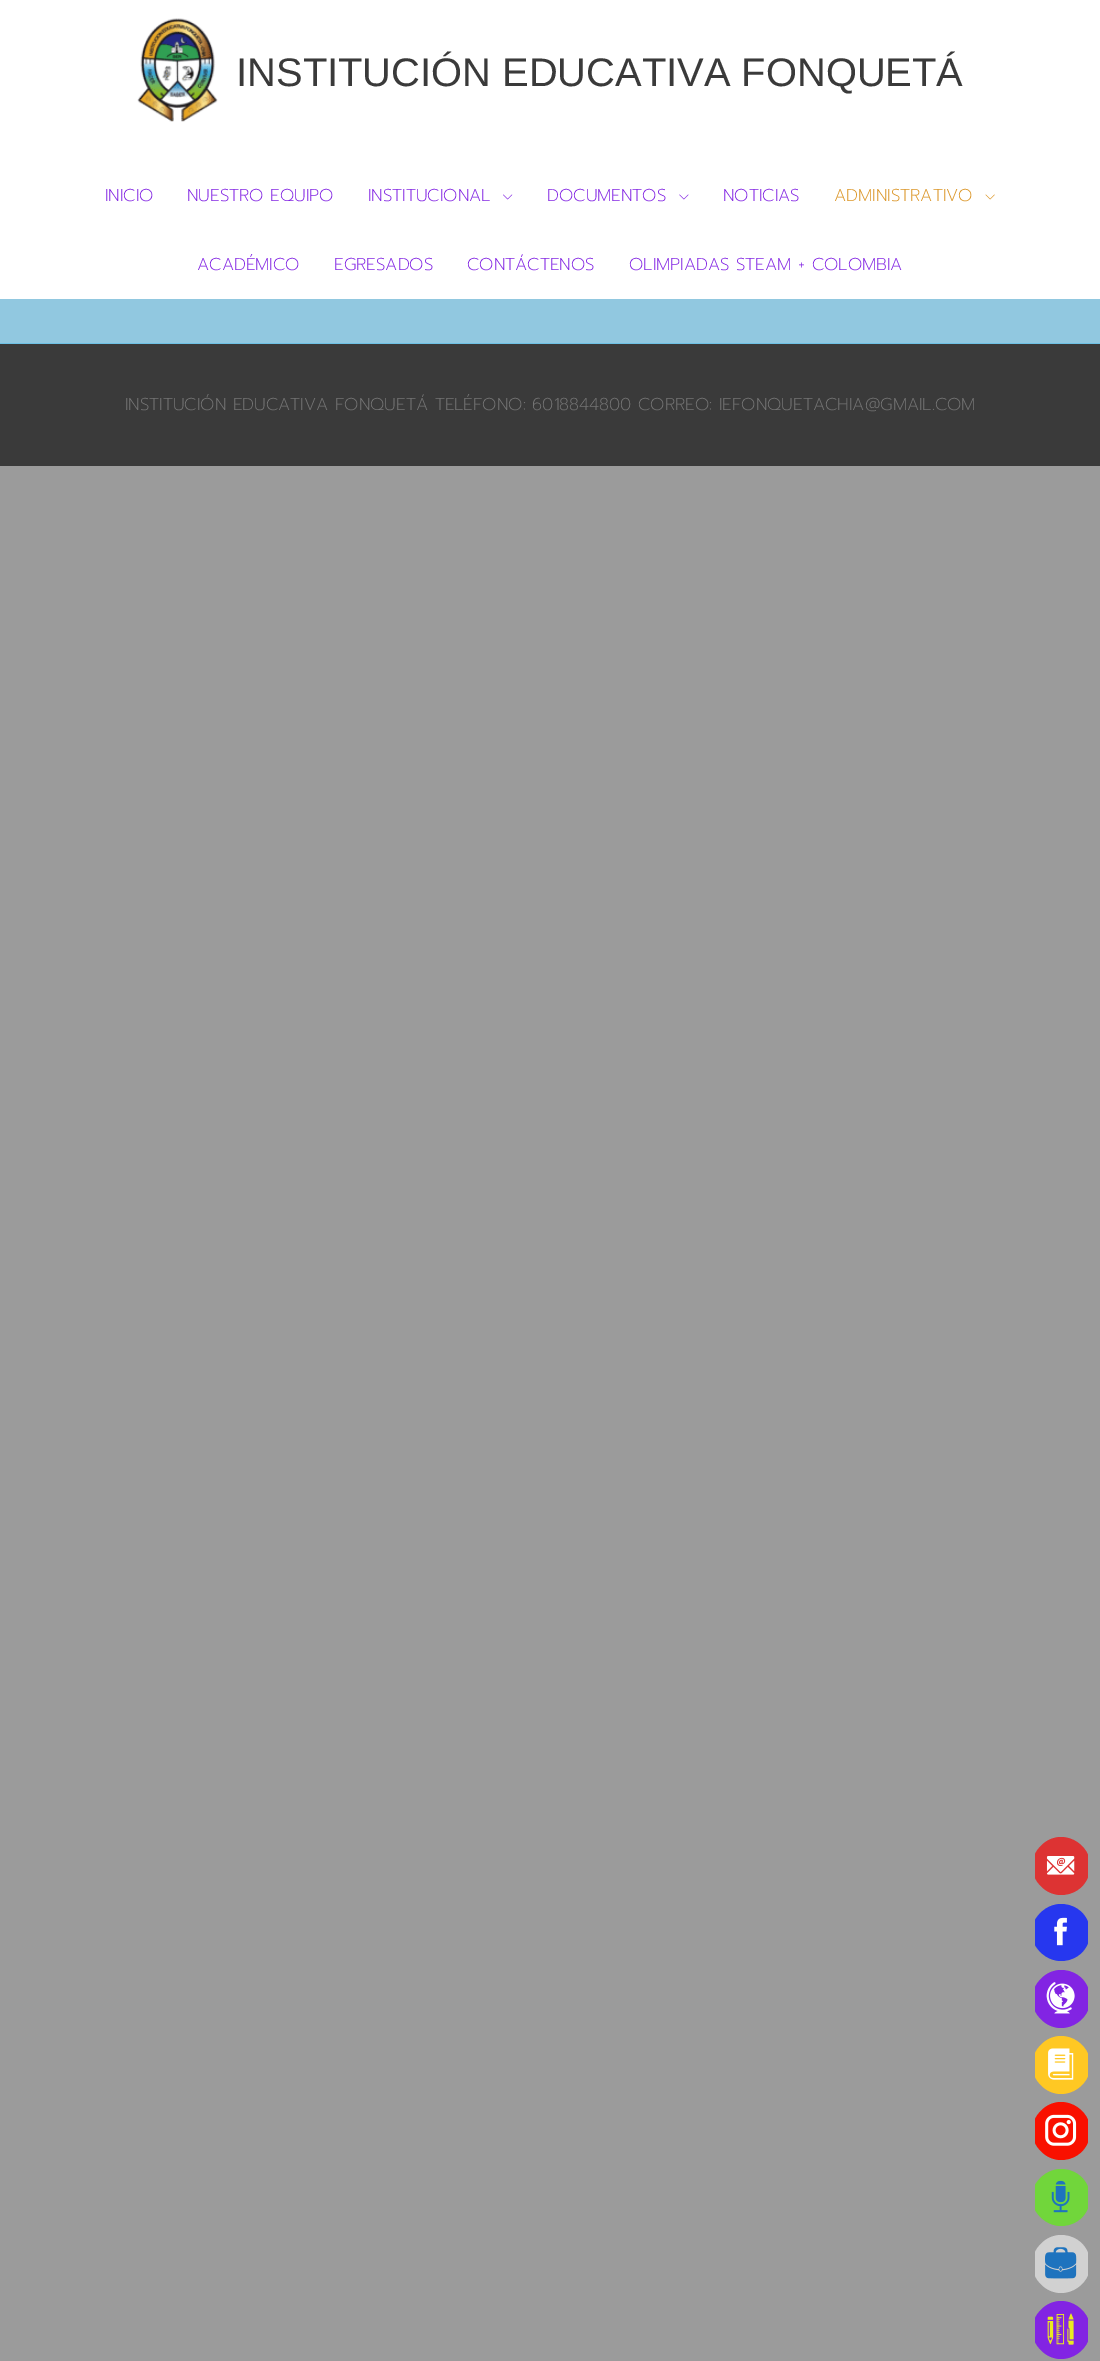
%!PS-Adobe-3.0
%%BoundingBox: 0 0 1100 2361
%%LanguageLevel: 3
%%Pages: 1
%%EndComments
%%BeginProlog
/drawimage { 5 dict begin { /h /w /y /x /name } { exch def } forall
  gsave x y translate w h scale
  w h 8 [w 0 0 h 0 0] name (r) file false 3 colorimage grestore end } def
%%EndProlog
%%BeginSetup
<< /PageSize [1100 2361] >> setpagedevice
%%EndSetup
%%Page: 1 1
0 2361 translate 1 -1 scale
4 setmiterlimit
0.608 setgray
0 0 1100 2361 rectfill
1 setgray
0 0 1100 299 rectfill
(images/1.raw) 137 18 81 104 drawimage
(images/2.raw) 503 194 10 6 drawimage
(images/3.raw) 679 194 10 6 drawimage
(images/4.raw) 985 194 10 6 drawimage
0.569 0.784 0.878 setrgbcolor
0 299 1100 44 rectfill
0.431 0.757 0.894 setrgbcolor
0 343 1100 1 rectfill
0.227 setgray
0 344 1100 122 rectfill
0.867 0.2 0.2 setrgbcolor
newpath 1061 1837 moveto 1073 1837 1084 1845 1088 1855 curveto 1088 1877 lineto 1084 1888 1073 1895 1061 1895 curveto 1050 1895 1040 1888 1035 1878 curveto 1035 1854 lineto 1040 1844 1050 1837 1061 1837 curveto closepath fill
(images/5.raw) 1046 1856 29 19 drawimage
0.149 0.216 0.937 setrgbcolor
newpath 1061 1904 moveto 1073 1904 1084 1911 1088 1922 curveto 1088 1943 lineto 1084 1954 1073 1961 1061 1961 curveto 1050 1961 1040 1954 1035 1945 curveto 1035 1920 lineto 1040 1911 1050 1904 1061 1904 curveto closepath fill
(images/6.raw) 1054 1917 13 29 drawimage
0.51 0.141 0.89 setrgbcolor
newpath 1061 1970 moveto 1073 1970 1084 1977 1088 1988 curveto 1088 2010 lineto 1084 2020 1073 2028 1061 2028 curveto 1050 2028 1040 2021 1035 2011 curveto 1035 1987 lineto 1040 1977 1050 1970 1061 1970 curveto closepath fill
(images/7.raw) 1046 1982 29 32 drawimage
1 0.784 0.137 setrgbcolor
newpath 1061 2036 moveto 1073 2036 1084 2044 1088 2054 curveto 1088 2076 lineto 1084 2086 1073 2094 1061 2094 curveto 1050 2094 1040 2087 1035 2077 curveto 1035 2053 lineto 1040 2043 1050 2036 1061 2036 curveto closepath fill
(images/8.raw) 1048 2048 26 32 drawimage
0.976 0.063 0 setrgbcolor
newpath 1061 2102 moveto 1073 2102 1084 2110 1088 2120 curveto 1088 2142 lineto 1084 2153 1073 2160 1061 2160 curveto 1050 2160 1040 2153 1035 2143 curveto 1035 2119 lineto 1040 2109 1050 2102 1061 2102 curveto closepath fill
(images/9.raw) 1045 2114 32 32 drawimage
0.443 0.839 0.231 setrgbcolor
newpath 1061 2169 moveto 1073 2169 1084 2176 1088 2187 curveto 1088 2208 lineto 1084 2219 1073 2226 1061 2226 curveto 1050 2226 1040 2219 1035 2210 curveto 1035 2185 lineto 1040 2176 1050 2169 1061 2169 curveto closepath fill
(images/10.raw) 1051 2180 19 33 drawimage
0.82 setgray
newpath 1061 2235 moveto 1073 2235 1084 2242 1088 2253 curveto 1088 2275 lineto 1084 2285 1073 2293 1061 2293 curveto 1050 2293 1040 2286 1035 2276 curveto 1035 2252 lineto 1040 2242 1050 2235 1061 2235 curveto closepath fill
(images/11.raw) 1045 2247 32 32 drawimage
0.51 0.141 0.89 setrgbcolor
newpath 1061 2301 moveto 1073 2301 1084 2309 1088 2319 curveto 1088 2341 lineto 1084 2351 1073 2359 1061 2359 curveto 1050 2359 1040 2352 1035 2342 curveto 1035 2318 lineto 1040 2308 1050 2301 1061 2301 curveto closepath fill
(images/12.raw) 1047 2313 27 32 drawimage
/LiberationSans-Regular [39.9 0 0 -39.9 0 0] selectfont
0.227 setgray
236 86 moveto (INSTITUCIÓN EDUCATIVA FONQUETÁ) show
/Prompt-ExtraLight [17.1 0 0 -17.1 0 0] selectfont
0.51 0.141 0.89 setrgbcolor
105 201 moveto (INICIO) show
187 201 moveto (NUESTRO EQUIPO) show
368 201 moveto (INSTITUCIONAL) show
547 201 moveto (DOCUMENTOS) show
723 201 moveto (NOTICIAS) show
0.859 0.58 0.137 setrgbcolor
834 201 moveto (ADMINISTRATIVO) show
0.51 0.141 0.89 setrgbcolor
197 270 moveto (ACADÉMICO) show
334 270 moveto (EGRESADOS) show
467 270 moveto (CONTÁCTENOS) show
629 270 moveto (OLIMPIADAS STEAM + COLOMBIA) show
0.459 setgray
125 410 moveto (INSTITUCIÓN EDUCATIVA FONQUETÁ TELÉFONO: 6018844800 CORREO:) show
719 410 moveto (IEFONQUETACHIA@GMAIL.COM) show
showpage
%%EOF
